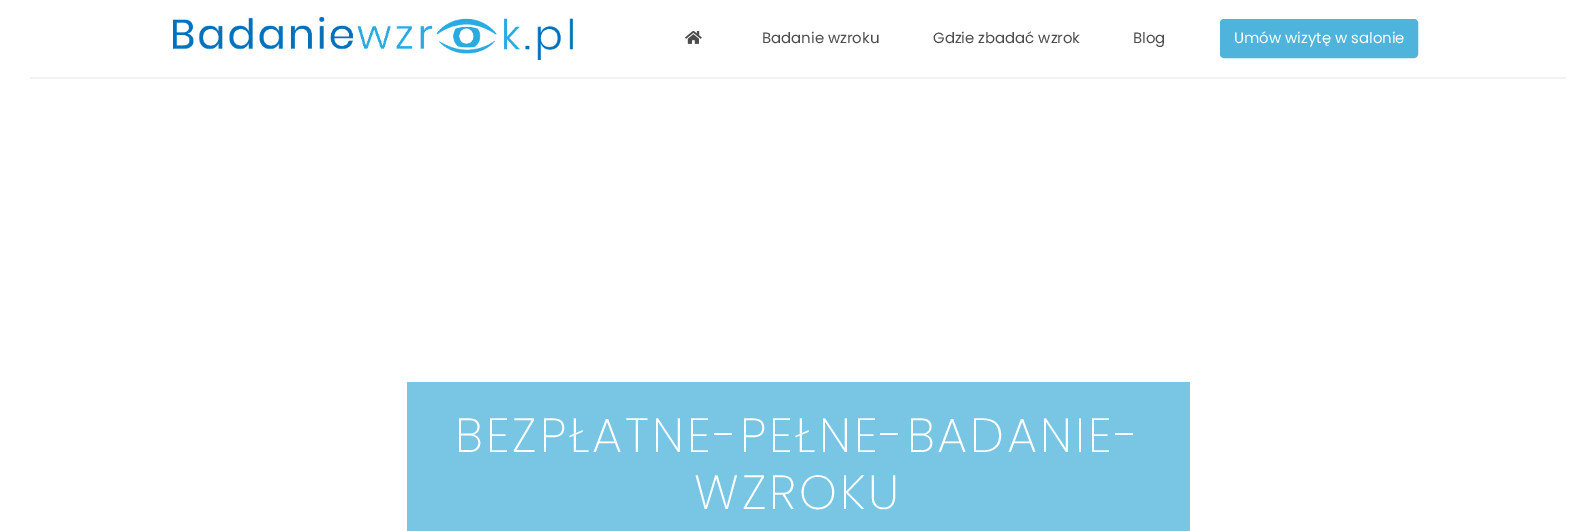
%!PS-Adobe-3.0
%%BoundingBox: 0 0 1596 531
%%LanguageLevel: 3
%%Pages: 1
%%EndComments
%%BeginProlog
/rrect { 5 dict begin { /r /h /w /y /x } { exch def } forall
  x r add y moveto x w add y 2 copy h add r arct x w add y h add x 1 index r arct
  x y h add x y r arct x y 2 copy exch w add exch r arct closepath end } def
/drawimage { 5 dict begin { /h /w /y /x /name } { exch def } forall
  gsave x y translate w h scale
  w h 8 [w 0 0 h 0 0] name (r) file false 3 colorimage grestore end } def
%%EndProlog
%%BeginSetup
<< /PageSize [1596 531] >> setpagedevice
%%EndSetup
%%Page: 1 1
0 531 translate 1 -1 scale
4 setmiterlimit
1 setgray
0 0 1596 531 rectfill
(images/1.raw) 173 17 400 43 drawimage
(images/2.raw) 685 30 17 14 drawimage
0.306 0.706 0.859 setrgbcolor
1221 20 196 37 3 rrect gsave fill grestore
2 setlinewidth
stroke
0.949 setgray
30 77 1536 2 rectfill
0.475 0.776 0.894 setrgbcolor
407 382 783 149 rectfill
/Poppins-Regular [14.9 0 0 -14.9 0 0] selectfont
0.302 setgray
762 43 moveto (Badanie wzroku) show
933 43 moveto (Gdzie zbadać wzrok) show
1133 43 moveto (Blog) show
1 setgray
1234 43 moveto (Umów wizytę w salonie) show
/Poppins-ExtraLight [48 0 0 -48 0 0] selectfont
455 452 moveto 3 0 (BEZPŁATNE-PEŁNE-BADANIE-) ashow
694 509 moveto 3 0 (WZROKU) ashow
showpage
%%EOF
